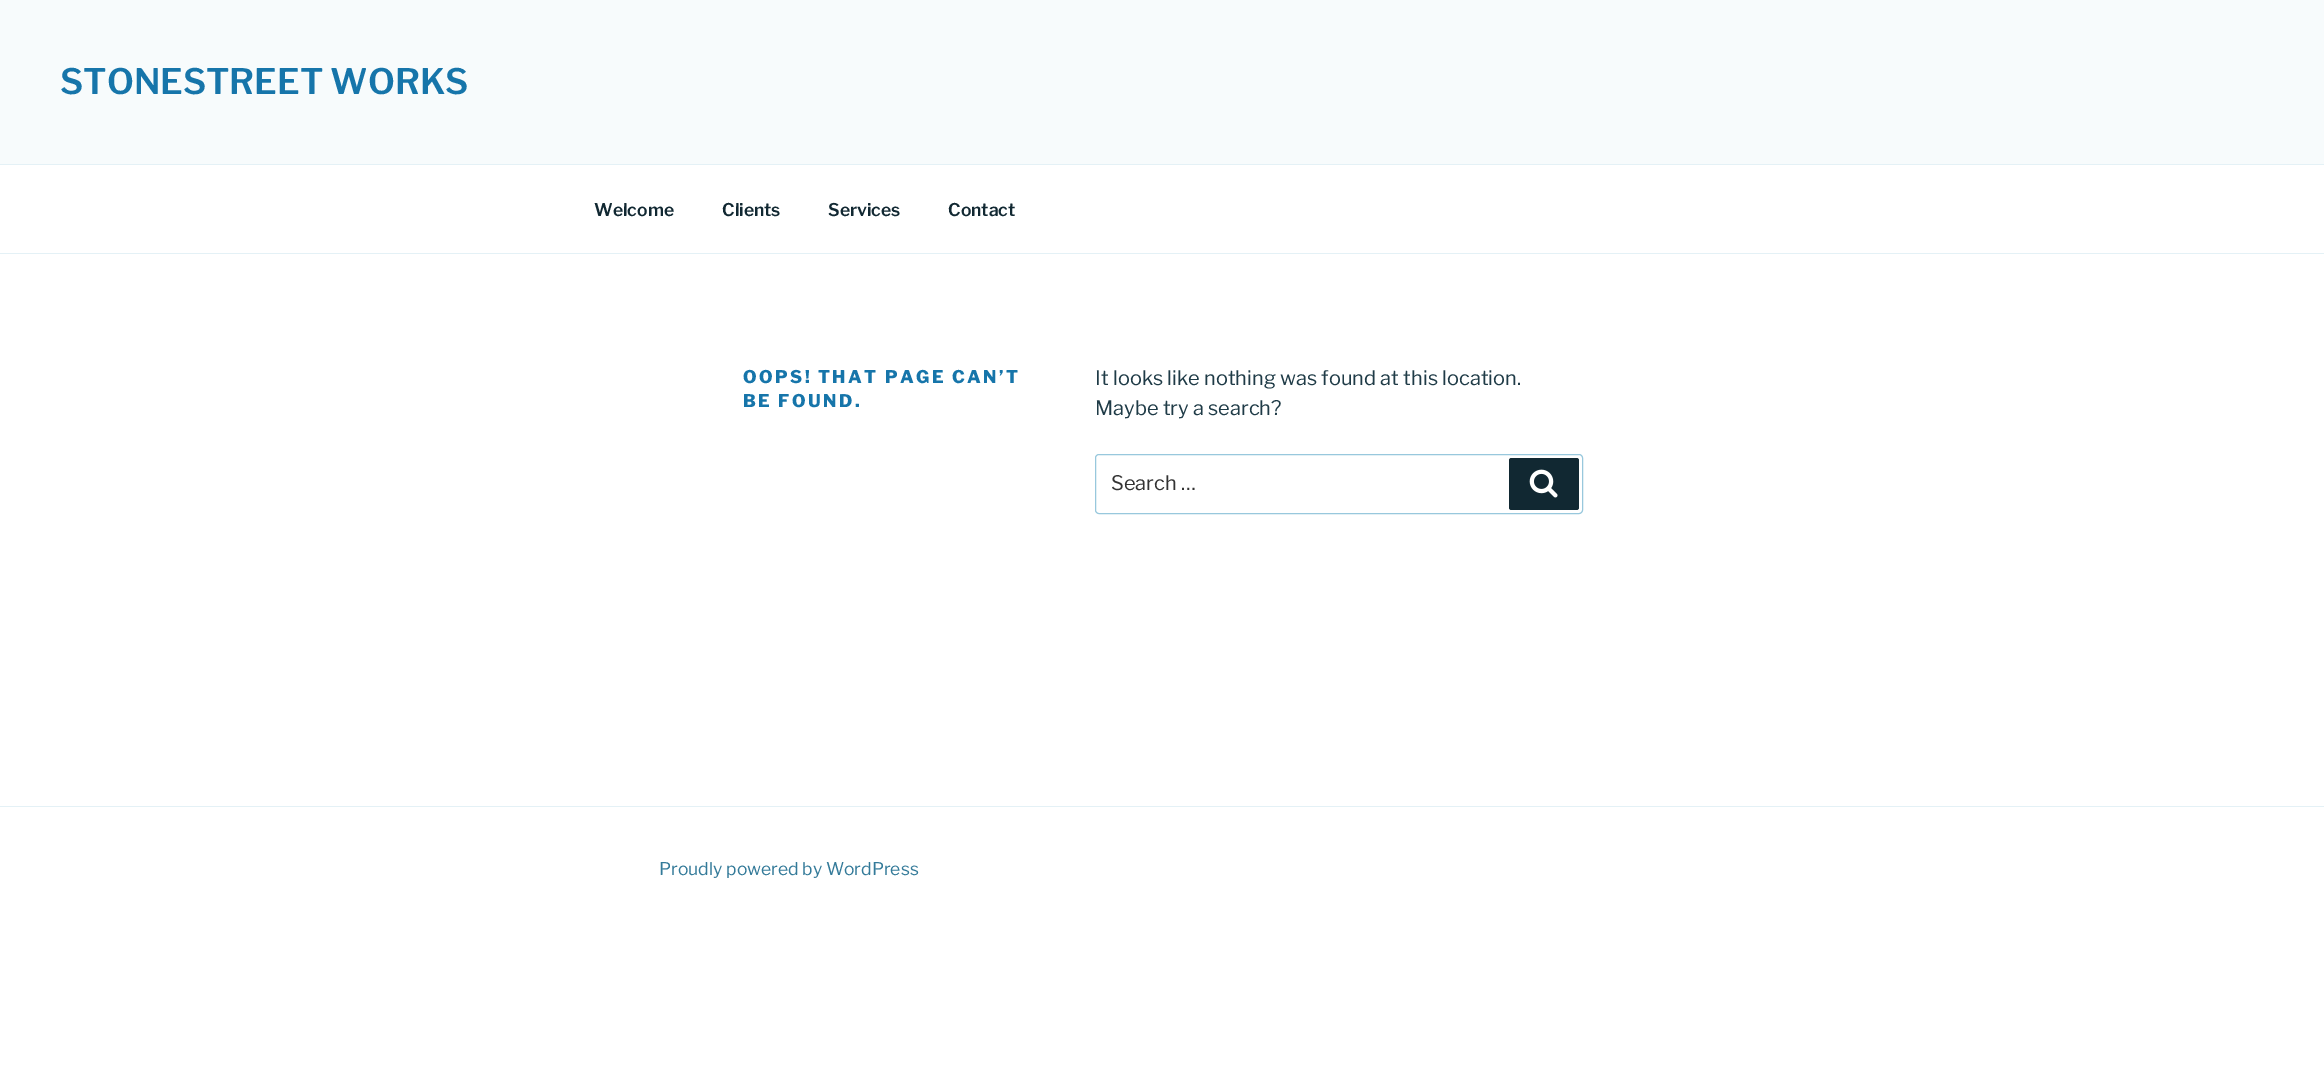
%!PS-Adobe-3.0
%%BoundingBox: 0 0 2324 1082
%%LanguageLevel: 3
%%Pages: 1
%%EndComments
%%BeginProlog
/rrect { 5 dict begin { /r /h /w /y /x } { exch def } forall
  x r add y moveto x w add y 2 copy h add r arct x w add y h add x 1 index r arct
  x y h add x y r arct x y 2 copy exch w add exch r arct closepath end } def
/drawimage { 5 dict begin { /h /w /y /x /name } { exch def } forall
  gsave x y translate w h scale
  w h 8 [w 0 0 h 0 0] name (r) file false 3 colorimage grestore end } def
%%EndProlog
%%BeginSetup
<< /PageSize [2324 1082] >> setpagedevice
%%EndSetup
%%Page: 1 1
0 1082 translate 1 -1 scale
4 setmiterlimit
1 setgray
0 0 2324 1082 rectfill
0.969 0.984 0.988 setrgbcolor
0 0 2324 164 rectfill
0.894 0.945 0.965 setrgbcolor
0 164 2324 1 rectfill
0 253 2324 1 rectfill
0.596 0.784 0.867 setrgbcolor
1095.5 454.5 487 59 3.5 rrect stroke
0.067 0.157 0.196 setrgbcolor
1509 458 70 52 2.5 rrect fill
(images/1.raw) 1529 469 29 29 drawimage
0.894 0.945 0.965 setrgbcolor
0 806 2324 1 rectfill
/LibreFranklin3-Thin [35 0 0 -35 0 0] selectfont
0.086 0.459 0.667 setrgbcolor
60 94 moveto (STONESTREET WORKS) show
/LibreFranklin3-Thin [17.5 0 0 -17.5 0 0] selectfont
0.067 0.157 0.196 setrgbcolor
594 216 moveto (Welcome) show
722 216 moveto (Clients) show
828 216 moveto (Services) show
948 216 moveto (Contact) show
/LibreFranklin-Thin [17.5 0 0 -17.5 0 0] selectfont
0.086 0.459 0.667 setrgbcolor
743 383 moveto 2.45 0 (OOPS! THAT PAGE CAN’T) ashow
743 407 moveto 2.45 0 (BE FOUND.) ashow
/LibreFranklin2-Thin [20 0 0 -20 0 0] selectfont
0.122 0.231 0.278 setrgbcolor
1095 385 moveto (It looks like nothing was found at this location.) show
1095 415 moveto (Maybe try a search?) show
0.2 setgray
1111 490 moveto (Search …) show
/LibreFranklin2-Thin [17.5 0 0 -17.5 0 0] selectfont
0.2 0.478 0.6 setrgbcolor
659 875 moveto (Proudly powered by WordPress) show
showpage
%%EOF
